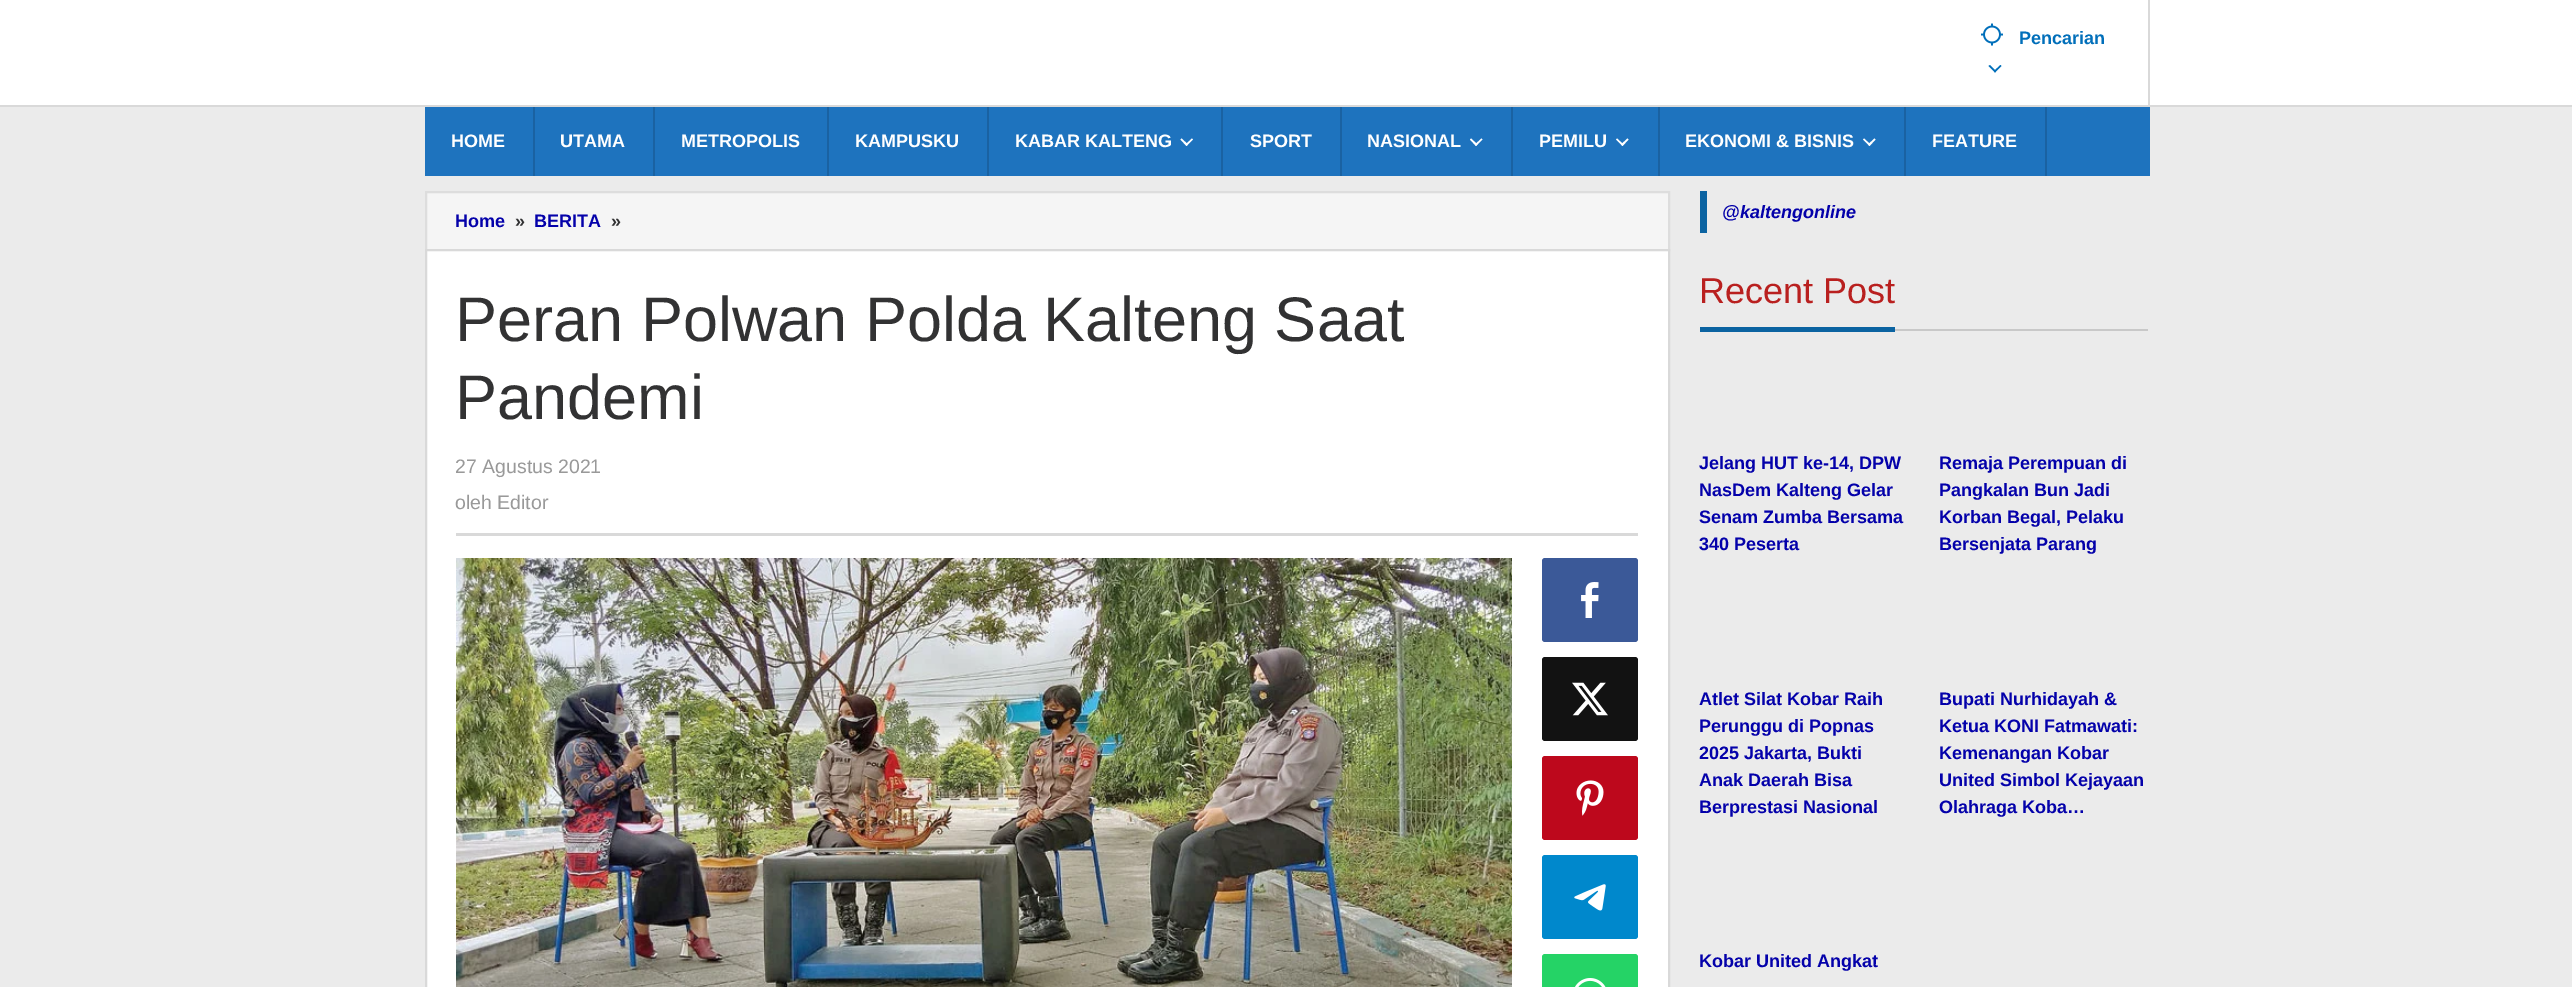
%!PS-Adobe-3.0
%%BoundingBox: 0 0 2572 987
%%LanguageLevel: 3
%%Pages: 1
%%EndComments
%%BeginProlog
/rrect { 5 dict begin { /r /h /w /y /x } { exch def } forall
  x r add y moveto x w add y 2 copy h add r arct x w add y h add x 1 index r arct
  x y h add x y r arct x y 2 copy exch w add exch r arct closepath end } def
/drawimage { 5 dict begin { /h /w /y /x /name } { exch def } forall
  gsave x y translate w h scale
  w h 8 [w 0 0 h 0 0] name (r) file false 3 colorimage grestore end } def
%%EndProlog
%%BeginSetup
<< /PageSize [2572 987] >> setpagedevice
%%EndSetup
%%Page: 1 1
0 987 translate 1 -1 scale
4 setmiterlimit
0.922 setgray
0 0 2572 987 rectfill
1 setgray
0 0 2572 105 rectfill
0.851 setgray
0 105 2572 2 rectfill
2148 0 2 105 rectfill
(images/1.raw) 1981 23 22 23 drawimage
0.004 0.435 0.729 setrgbcolor
newpath 2000.5 65 moveto 2001.5 66 lineto 1995 72.5 lineto 1994 71 lineto closepath fill
newpath 1990 65 moveto 1996 71 lineto 1995 72.5 lineto 1988.5 66 lineto closepath fill
0.118 0.451 0.745 setrgbcolor
425 107 1725 69 rectfill
0.102 0.384 0.635 setrgbcolor
533 107 2 69 rectfill
653 107 2 69 rectfill
827 107 2 69 rectfill
987 107 2 69 rectfill
1221 107 2 69 rectfill
1 setgray
newpath 1192 138.5 moveto 1193 139.5 lineto 1186.5 146 lineto 1185.5 144.5 lineto closepath fill
newpath 1181.5 138.5 moveto 1188 144.5 lineto 1186.5 146 lineto 1180.5 139.5 lineto closepath fill
0.102 0.384 0.635 setrgbcolor
1340 107 2 69 rectfill
1511 107 2 69 rectfill
1 setgray
newpath 1481.5 138.5 moveto 1482.5 139.5 lineto 1476 146 lineto 1475 144.5 lineto closepath fill
newpath 1471 138.5 moveto 1477.5 144.5 lineto 1476 146 lineto 1470 139.5 lineto closepath fill
0.102 0.384 0.635 setrgbcolor
1658 107 2 69 rectfill
1 setgray
newpath 1627.5 138.5 moveto 1628.5 139.5 lineto 1622.5 146 lineto 1621 144.5 lineto closepath fill
newpath 1617 138.5 moveto 1623.5 144.5 lineto 1622.5 146 lineto 1616 139.5 lineto closepath fill
0.102 0.384 0.635 setrgbcolor
1904 107 2 69 rectfill
1 setgray
newpath 1874.5 138.5 moveto 1875.5 139.5 lineto 1869.5 146 lineto 1868 144.5 lineto closepath fill
newpath 1864 138.5 moveto 1870.5 144.5 lineto 1869.5 146 lineto 1863 139.5 lineto closepath fill
0.102 0.384 0.635 setrgbcolor
2045 107 2 69 rectfill
0.961 setgray
newpath 426 192 moveto 1669 192 lineto 1669 250 lineto 426 250 lineto closepath gsave fill grestore
0.867 setgray
2 setlinewidth
stroke
1 setgray
newpath 426 250 moveto 1669 250 lineto 1669 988 lineto 426 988 lineto closepath gsave fill grestore
0.851 setgray
stroke
456 533 1182 3 rectfill
(images/2.raw) 456 558 1056 429 drawimage
0.231 0.349 0.596 setrgbcolor
1542 558 96 84 3 rrect fill
(images/3.raw) 1581 582 18 36 drawimage
0.071 setgray
1542 657 96 84 3 rrect fill
(images/4.raw) 1572 682 36 34 drawimage
0.741 0.031 0.11 setrgbcolor
1542 756 96 84 3 rrect fill
(images/5.raw) 1576 780 28 36 drawimage
0 0.533 0.8 setrgbcolor
1542 855 96 84 3 rrect fill
(images/6.raw) 1574 884 32 27 drawimage
0.145 0.827 0.4 setrgbcolor
1542 954 96 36 3 rrect fill
(images/7.raw) 1575 978 31 9 drawimage
0.043 0.388 0.631 setrgbcolor
1700 191 7 42 rectfill
0.784 setgray
1895 329 253 2 rectfill
0.043 0.388 0.631 setrgbcolor
1700 327 195 5 rectfill
/LiberationSans-Bold [18 0 0 -18 0 0] selectfont
0.004 0.435 0.729 setrgbcolor
2019 44 moveto (Pencarian) show
1 setgray
451 147 moveto (HOME) show
560 147 moveto (UTAMA) show
681 147 moveto (METROPOLIS) show
855 147 moveto (KAMPUSKU) show
1015 147 moveto (KABAR KALTENG) show
1250 147 moveto (SPORT) show
1367 147 moveto (NASIONAL) show
1539 147 moveto (PEMILU) show
1685 147 moveto (EKONOMI & BISNIS) show
1932 147 moveto (FEATURE) show
0.016 0.004 0.667 setrgbcolor
455 227 moveto (Home) show
0.196 0.196 0.2 setrgbcolor
515 227 moveto (») show
0.016 0.004 0.667 setrgbcolor
534 227 moveto (BERITA) show
0.196 0.196 0.2 setrgbcolor
611 227 moveto (») show
/LiberationSans-Regular [63 0 0 -63 0 0] selectfont
455 341 moveto (Peran Polwan Polda Kalteng Saat) show
455 419 moveto (Pandemi) show
/LiberationSans-Regular [19.5 0 0 -19.5 0 0] selectfont
0.6 setgray
455 473 moveto (27 Agustus 2021) show
455 509 moveto (oleh Editor) show
/LiberationSans-BoldItalic [18 0 0 -18 0 0] selectfont
0.016 0.004 0.667 setrgbcolor
1722 218 moveto (@kaltengonline) show
/LiberationSans-Regular [36 0 0 -36 0 0] selectfont
0.725 0.125 0.122 setrgbcolor
1699 303 moveto (Recent Post) show
/LiberationSans-Bold [18 0 0 -18 0 0] selectfont
0.016 0.004 0.667 setrgbcolor
1699 469 moveto (Jelang HUT ke-14, DPW) show
1699 496 moveto (NasDem Kalteng Gelar) show
1699 523 moveto (Senam Zumba Bersama) show
1699 550 moveto (340 Peserta) show
1939 469 moveto (Remaja Perempuan di) show
1939 496 moveto (Pangkalan Bun Jadi) show
1939 523 moveto (Korban Begal, Pelaku) show
1939 550 moveto (Bersenjata Parang) show
1699 705 moveto (Atlet Silat Kobar Raih) show
1699 732 moveto (Perunggu di Popnas) show
1699 759 moveto (2025 Jakarta, Bukti) show
1699 786 moveto (Anak Daerah Bisa) show
1699 813 moveto (Berprestasi Nasional) show
1939 705 moveto (Bupati Nurhidayah &) show
1939 732 moveto (Ketua KONI Fatmawati:) show
1939 759 moveto (Kemenangan Kobar) show
1939 786 moveto (United Simbol Kejayaan) show
1939 813 moveto (Olahraga Koba…) show
1699 967 moveto (Kobar United Angkat) show
showpage
%%EOF
